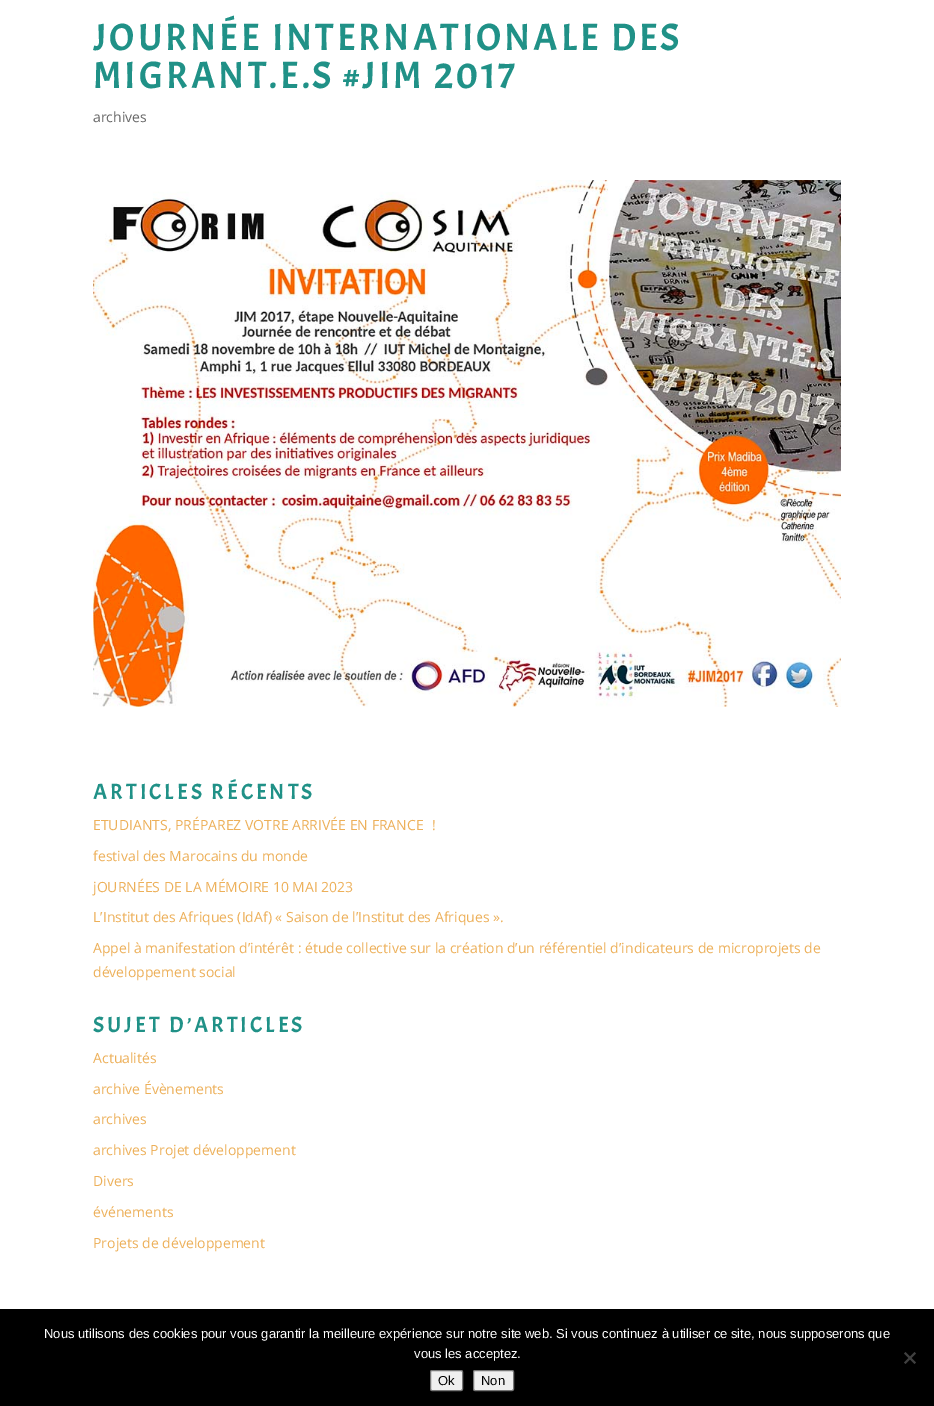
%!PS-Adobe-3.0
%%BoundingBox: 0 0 934 1406
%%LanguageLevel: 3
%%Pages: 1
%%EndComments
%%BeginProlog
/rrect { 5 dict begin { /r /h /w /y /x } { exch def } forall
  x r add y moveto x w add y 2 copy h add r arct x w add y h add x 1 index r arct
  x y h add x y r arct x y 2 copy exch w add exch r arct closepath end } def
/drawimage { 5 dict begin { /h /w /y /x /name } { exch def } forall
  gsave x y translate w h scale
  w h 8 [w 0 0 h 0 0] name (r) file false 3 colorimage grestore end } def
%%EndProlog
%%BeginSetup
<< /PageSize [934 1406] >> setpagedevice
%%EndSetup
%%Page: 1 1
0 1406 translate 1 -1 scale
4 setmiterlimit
1 setgray
0 0 934 1406 rectfill
(images/1.raw) 93 180 748 527 drawimage
0 setgray
0 1309 934 97 rectfill
0.251 setgray
newpath 914.5 1352 moveto 916 1353.5 lineto 905.5 1364 lineto 904 1362.5 lineto closepath fill
newpath 904 1353.5 moveto 905.5 1352 lineto 916 1362.5 lineto 914.5 1364 lineto closepath fill
0.937 setgray
430.5 1370.5 32 20 1.5 rrect gsave fill grestore
0.463 setgray
stroke
0.937 setgray
473.5 1370.5 40 20 1.5 rrect gsave fill grestore
0.463 setgray
stroke
/Acme-Regular [38 0 0 -38 0 0] selectfont
0.125 0.569 0.529 setrgbcolor
93 50 moveto 3 0 (JOURNÉE INTERNATIONALE DES) ashow
93 88 moveto 3 0 (MIGRANT.E.S #JIM 2017) ashow
/OpenSans-Regular [14 0 0 -14 0 0] selectfont
0.4 setgray
93 122 moveto (archives) show
/Acme-Regular [22 0 0 -22 0 0] selectfont
0.125 0.569 0.529 setrgbcolor
93 799 moveto 3 0 (ARTICLES RÉCENTS) ashow
/OpenSans-Regular [14 0 0 -14 0 0] selectfont
0.929 0.69 0.349 setrgbcolor
93 830 moveto (ETUDIANTS, PRÉPAREZ VOTRE ARRIVÉE EN FRANCE !) show
93 861 moveto (festival des Marocains du monde) show
93 892 moveto (jOURNÉES DE LA MÉMOIRE 10 MAI 2023) show
93 922 moveto (L’Institut des Afriques \(IdAf\) « Saison de l’Institut des Afriques ».) show
93 953 moveto (Appel à manifestation d’intérêt : étude collective sur la création d’un référentiel d’indicateurs de microprojets de) show
93 977 moveto (développement social) show
/Acme-Regular [22 0 0 -22 0 0] selectfont
0.125 0.569 0.529 setrgbcolor
93 1032 moveto 3 0 (SUJET D’ARTICLES) ashow
/OpenSans-Regular [14 0 0 -14 0 0] selectfont
0.929 0.69 0.349 setrgbcolor
93 1063 moveto (Actualités) show
93 1094 moveto (archive Évènements) show
93 1124 moveto (archives) show
93 1155 moveto (archives Projet développement) show
93 1186 moveto (Divers) show
93 1217 moveto (événements) show
93 1248 moveto (Projets de développement) show
/LiberationSans-Regular [13 0 0 -13 0 0] selectfont
1 setgray
44 1338 moveto (Nous utilisons des cookies pour vous garantir la meilleure expérience sur notre site web. Si vous continuez à utiliser ce site, nous supposerons que) show
414 1358 moveto (vous les acceptez.) show
0 setgray
438 1385 moveto (Ok) show
481 1385 moveto (Non) show
showpage
%%EOF
